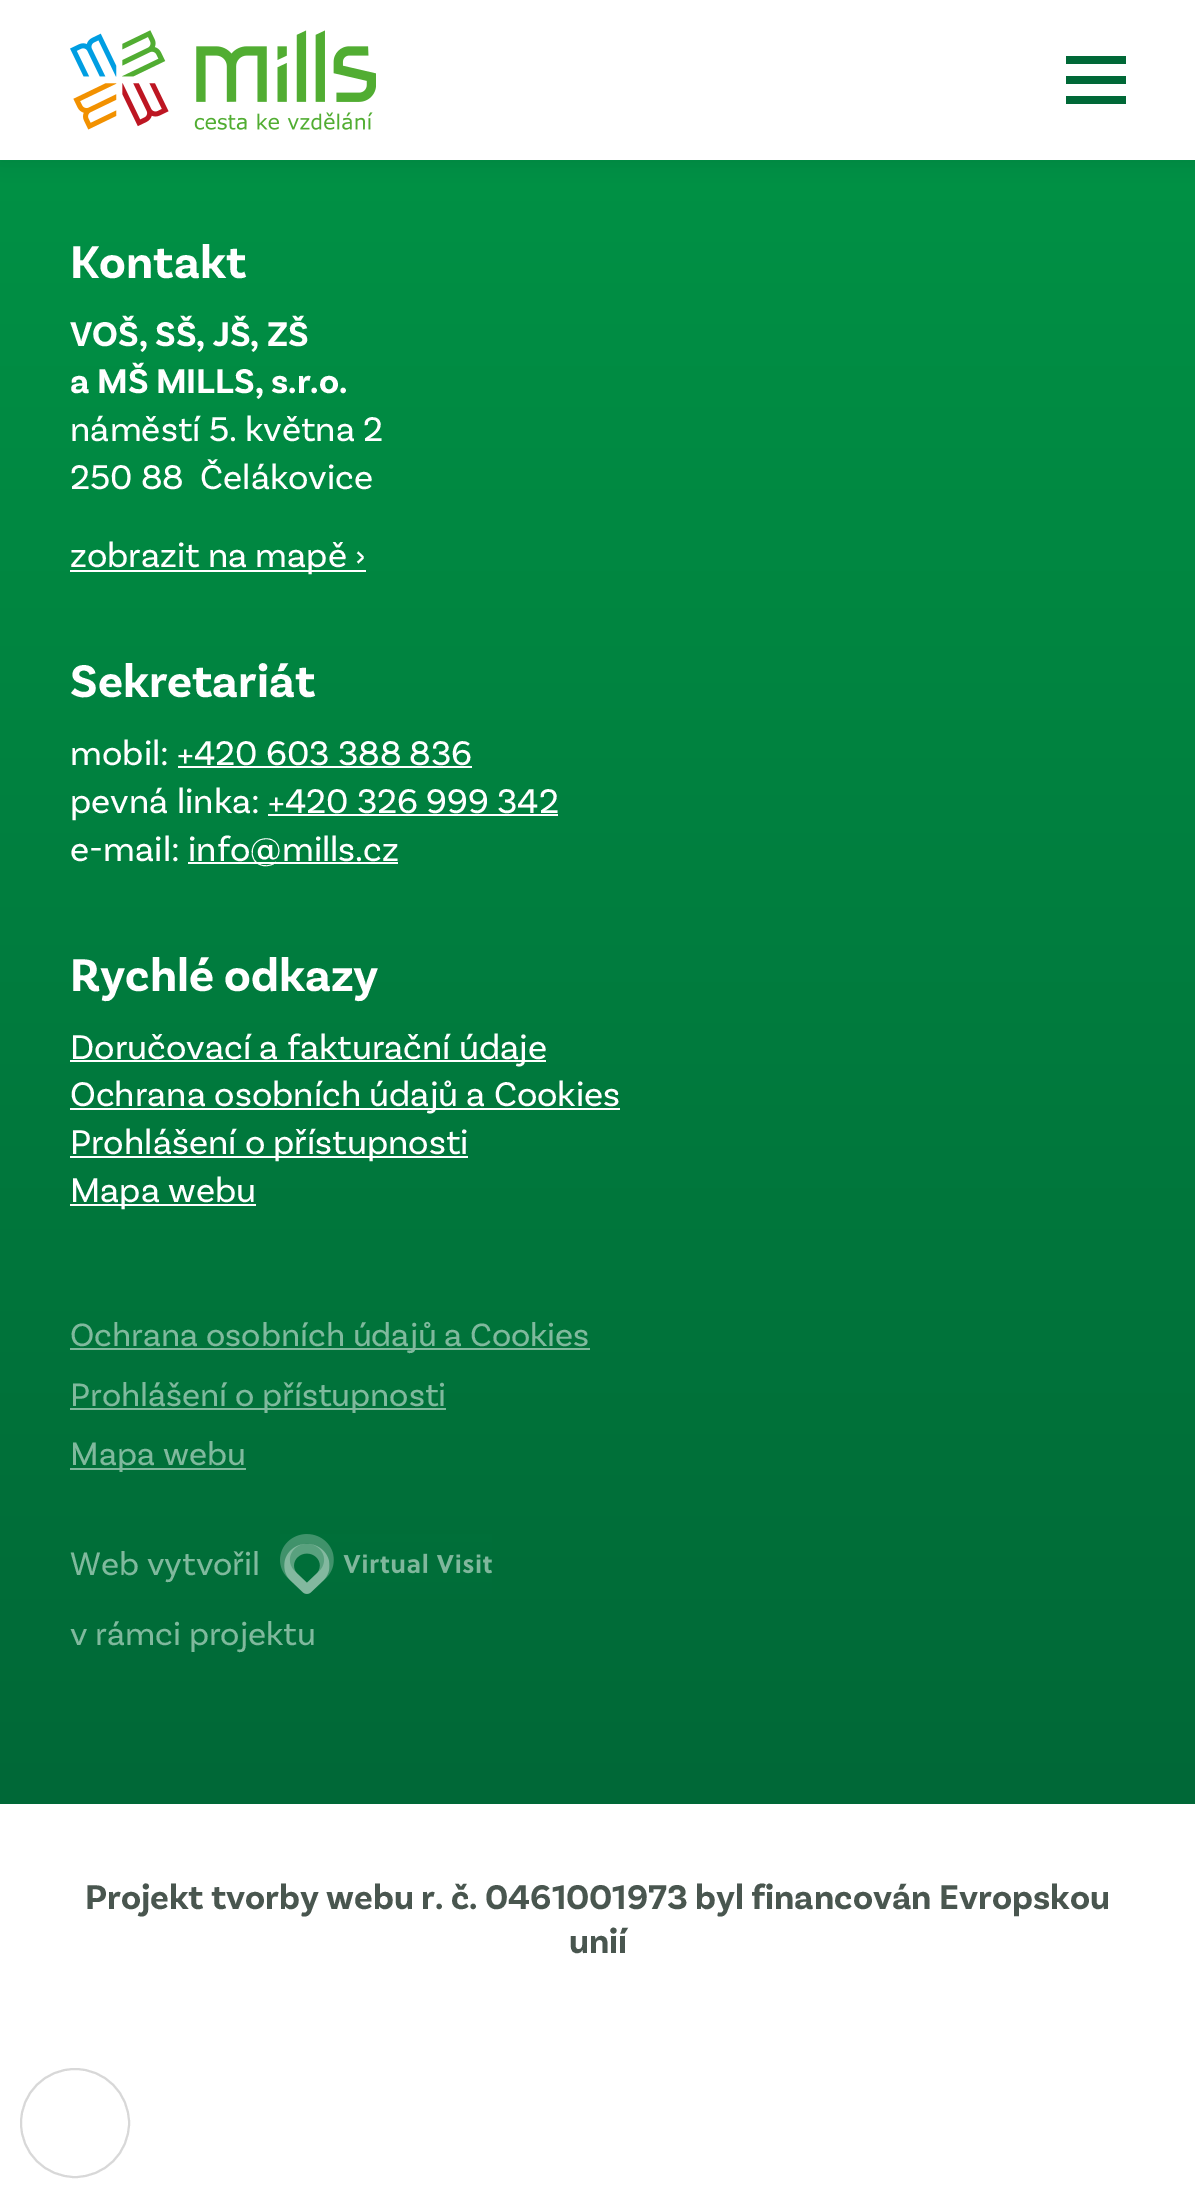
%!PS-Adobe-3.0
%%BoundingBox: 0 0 1195 2198
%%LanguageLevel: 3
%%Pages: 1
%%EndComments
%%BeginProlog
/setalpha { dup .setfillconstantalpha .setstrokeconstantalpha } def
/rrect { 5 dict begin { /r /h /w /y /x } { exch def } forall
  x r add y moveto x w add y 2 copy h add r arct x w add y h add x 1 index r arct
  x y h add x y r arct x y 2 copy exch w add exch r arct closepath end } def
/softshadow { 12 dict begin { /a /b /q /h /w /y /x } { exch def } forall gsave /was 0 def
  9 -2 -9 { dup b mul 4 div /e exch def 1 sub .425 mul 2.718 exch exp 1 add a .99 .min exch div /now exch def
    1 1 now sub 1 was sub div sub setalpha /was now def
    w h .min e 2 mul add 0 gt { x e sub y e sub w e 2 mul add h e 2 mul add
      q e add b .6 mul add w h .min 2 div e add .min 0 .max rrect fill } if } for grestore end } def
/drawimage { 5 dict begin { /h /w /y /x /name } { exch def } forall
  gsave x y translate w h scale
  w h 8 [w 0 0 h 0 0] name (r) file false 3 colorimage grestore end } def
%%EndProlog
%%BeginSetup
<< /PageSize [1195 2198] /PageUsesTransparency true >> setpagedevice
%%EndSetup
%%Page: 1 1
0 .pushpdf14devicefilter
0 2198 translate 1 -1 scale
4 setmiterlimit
1 setgray
0 0 1195 2198 rectfill
gsave newpath 0 160 moveto 1195 160 lineto 1195 1804 lineto 0 1804 lineto closepath clip newpath
<< /ShadingType 2 /ColorSpace /DeviceRGB /Coords [598 1804 598 112] /Extend [true true] /Function << /FunctionType 2 /Domain [0 1] /C0 [0 0.408 0.216] /C1 [0 0.573 0.271] /N 1 >> >> shfill grestore
0 setgray
0 0 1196 160 0 10 0.07 softshadow
1 setgray
0 0 1195 160 rectfill
(images/1.raw) 70 30 306 100 drawimage
0 0.408 0.216 setrgbcolor
1066 56 60 8 rectfill
1066 76 60 8 rectfill
1066 96 60 8 rectfill
1 setgray
70 570 296 2 rectfill
178 766 294 2 rectfill
268 814 290 2 rectfill
188 862 210 2 rectfill
70 1060 476 2 rectfill
70 1108 550 2 rectfill
70 1156 398 2 rectfill
70 1204 186 2 rectfill
0.502 0.725 0.616 setrgbcolor
70 1348 520 2 rectfill
70 1408 376 2 rectfill
0.502 0.722 0.616 setrgbcolor
70 1468 176 2 rectfill
(images/2.raw) 280 1534 212 60 drawimage
0.847 setgray
2 setlinewidth
newpath 75 2123 54 0 360 arc closepath stroke
/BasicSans-Bold [48 0 0 -48 0 0] selectfont
1 setgray
70 278 moveto (Kontakt) show
/BasicSans-Bold [36 0 0 -36 0 0] selectfont
70 346 moveto (VOŠ, SŠ, JŠ, ZŠ) show
70 393 moveto (a MŠ MILLS, s.r.o.) show
/BasicSans-Regular [36 0 0 -36 0 0] selectfont
70 441 moveto (náměstí 5. května 2) show
70 489 moveto (250 88  Čelákovice) show
70 567 moveto (zobrazit na mapě ›) show
/BasicSans-Bold [48 0 0 -48 0 0] selectfont
70 697 moveto (Sekretariát) show
/BasicSans-Regular [36 0 0 -36 0 0] selectfont
70 765 moveto (mobil: +420 603 388 836) show
70 813 moveto (pevná linka: +420 326 999 342) show
70 861 moveto (e-mail:) show
188 861 moveto (info@mills.cz) show
/BasicSans-Bold [48 0 0 -48 0 0] selectfont
70 991 moveto (Rychlé odkazy) show
/BasicSans-Regular [36 0 0 -36 0 0] selectfont
70 1059 moveto (Doručovací a fakturační údaje) show
70 1106 moveto (Ochrana osobních údajů a Cookies) show
70 1154 moveto (Prohlášení o přístupnosti) show
70 1202 moveto (Mapa webu) show
/BasicSans-Regular [34 0 0 -34 0 0] selectfont
0.502 0.725 0.616 setrgbcolor
70 1346 moveto (Ochrana osobních údajů a Cookies) show
70 1406 moveto (Prohlášení o přístupnosti) show
70 1465 moveto (Mapa webu) show
70 1575 moveto (Web vytvořil) show
70 1645 moveto (v rámci projektu) show
/BasicSans-Bold [36 0 0 -36 0 0] selectfont
0.286 0.337 0.31 setrgbcolor
85 1909 moveto (Projekt tvorby webu r. č. 0461001973 byl financován Evropskou) show
569 1953 moveto (unií) show
.poppdf14devicefilter showpage
%%EOF
